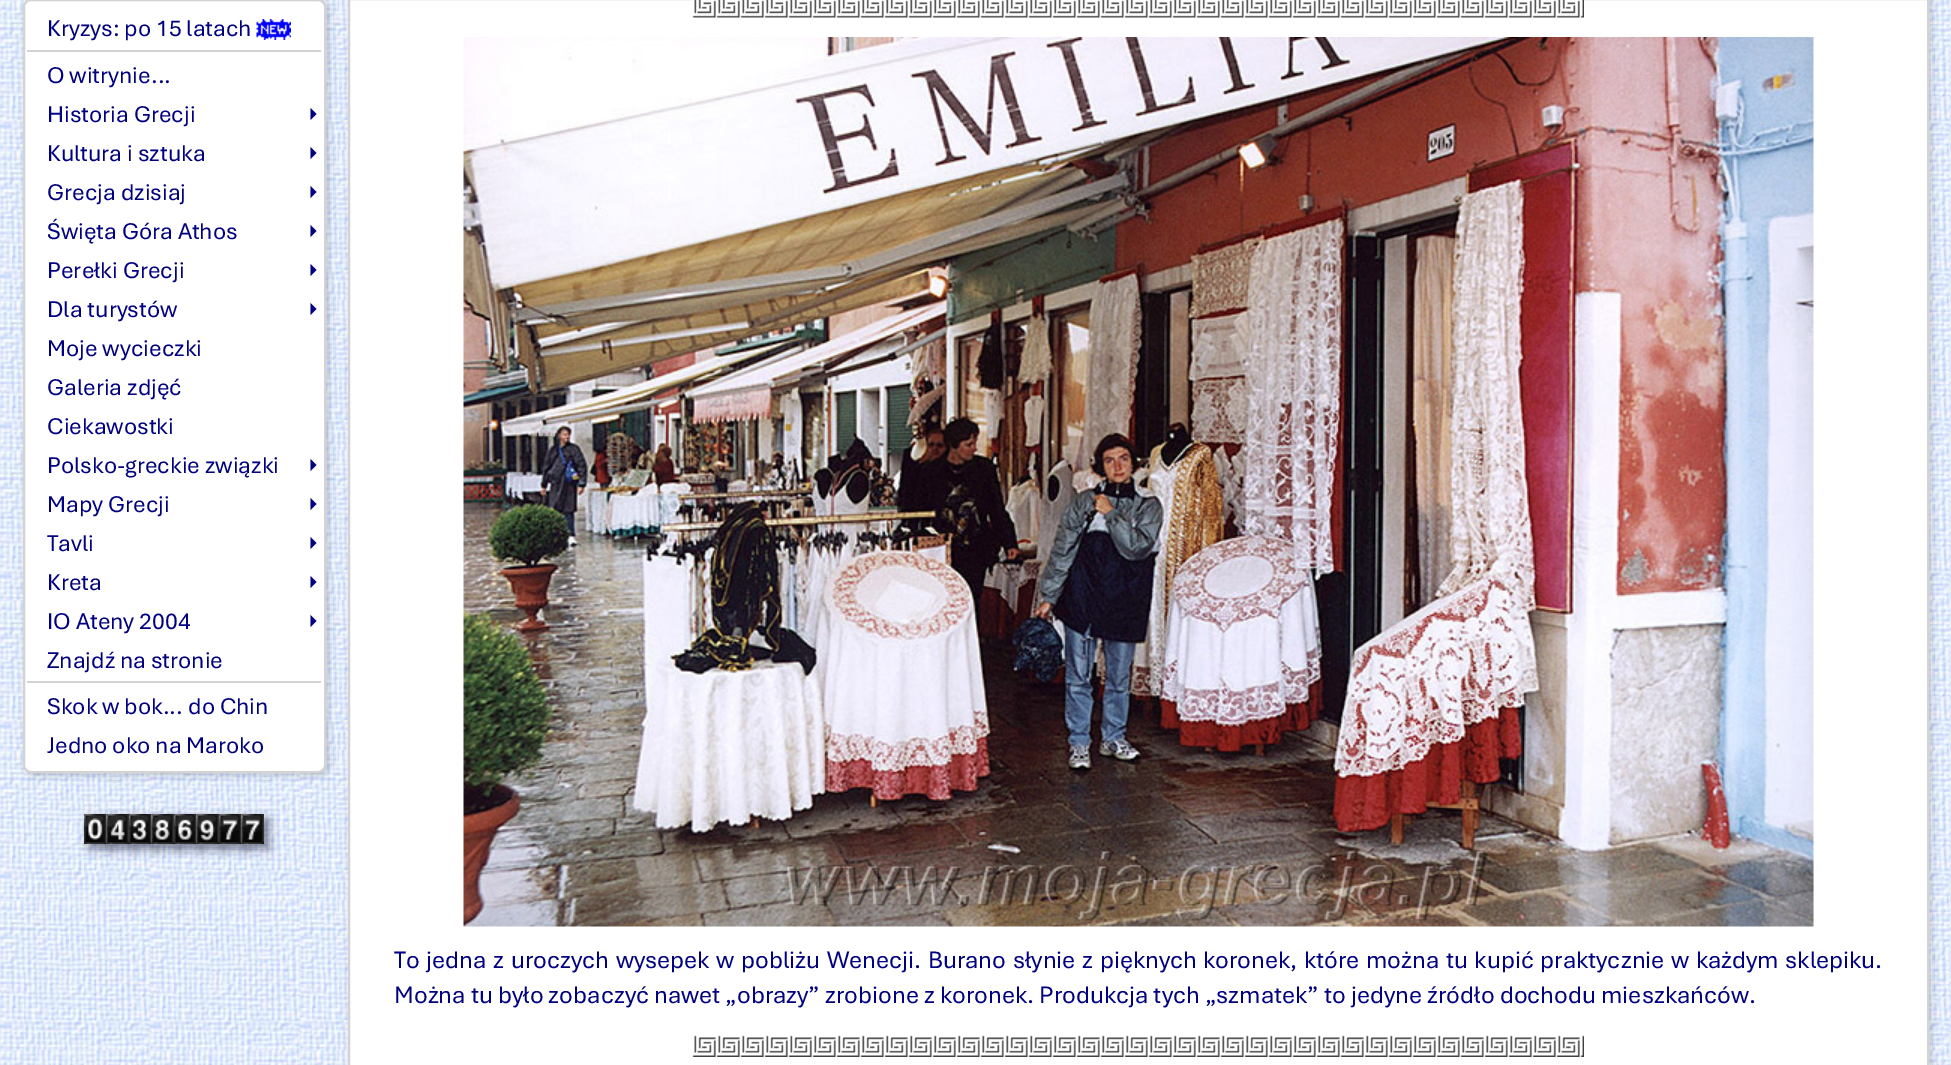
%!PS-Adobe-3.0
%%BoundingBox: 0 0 1951 1065
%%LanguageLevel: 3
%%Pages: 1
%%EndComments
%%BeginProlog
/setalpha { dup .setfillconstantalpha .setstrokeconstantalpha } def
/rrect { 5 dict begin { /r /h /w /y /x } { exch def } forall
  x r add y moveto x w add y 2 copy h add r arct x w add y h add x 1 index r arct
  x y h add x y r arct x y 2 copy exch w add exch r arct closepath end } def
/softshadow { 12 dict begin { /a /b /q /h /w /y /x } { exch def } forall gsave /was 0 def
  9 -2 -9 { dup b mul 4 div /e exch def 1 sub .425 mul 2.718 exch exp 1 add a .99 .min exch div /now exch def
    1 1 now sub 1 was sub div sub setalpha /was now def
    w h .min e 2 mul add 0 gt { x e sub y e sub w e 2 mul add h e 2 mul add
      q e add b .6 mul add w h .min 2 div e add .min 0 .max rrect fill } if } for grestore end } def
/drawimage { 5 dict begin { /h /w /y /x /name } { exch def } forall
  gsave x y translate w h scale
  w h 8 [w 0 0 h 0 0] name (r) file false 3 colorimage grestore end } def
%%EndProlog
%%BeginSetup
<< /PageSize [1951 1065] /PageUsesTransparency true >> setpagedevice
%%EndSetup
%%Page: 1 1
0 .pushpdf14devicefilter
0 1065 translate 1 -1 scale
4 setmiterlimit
1 setgray
0 0 1951 1065 rectfill
(images/1.raw) 0 0 1951 1065 drawimage
0.259 0.267 0.353 setrgbcolor
26 2 303 774 8 4 0.25 softshadow
1 setgray
24 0 301 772 7 rrect gsave fill grestore
0.827 setgray
2 setlinewidth
stroke
(images/2.raw) 256 19 35 21 drawimage
27 50 294 2 rectfill
0 0 0.502 setrgbcolor
newpath 310.5 120 moveto 310.5 108 lineto 316.5 114 lineto closepath fill
newpath 310.5 159 moveto 310.5 147 lineto 316.5 153 lineto closepath fill
newpath 310.5 198 moveto 310.5 186 lineto 316.5 192 lineto closepath fill
newpath 310.5 237 moveto 310.5 225 lineto 316.5 231 lineto closepath fill
newpath 310.5 276 moveto 310.5 264 lineto 316.5 270 lineto closepath fill
newpath 310.5 315 moveto 310.5 303 lineto 316.5 309 lineto closepath fill
newpath 310.5 471 moveto 310.5 459 lineto 316.5 465 lineto closepath fill
newpath 310.5 510 moveto 310.5 498 lineto 316.5 504 lineto closepath fill
newpath 310.5 549 moveto 310.5 537 lineto 316.5 543 lineto closepath fill
newpath 310.5 588 moveto 310.5 576 lineto 316.5 582 lineto closepath fill
newpath 310.5 627 moveto 310.5 615 lineto 316.5 621 lineto closepath fill
0.827 setgray
27 681 294 2 rectfill
0.259 0.267 0.353 setrgbcolor
89 819 22 30 0 5 0.65 softshadow
(images/3.raw) 84 814 23 30 drawimage
111 819 23 30 0 5 0.65 softshadow
(images/4.raw) 106 814 23 30 drawimage
134 819 22 30 0 5 0.65 softshadow
(images/5.raw) 129 814 23 30 drawimage
156 819 23 30 0 5 0.65 softshadow
(images/6.raw) 151 814 23 30 drawimage
179 819 22 30 0 5 0.65 softshadow
(images/7.raw) 174 814 23 30 drawimage
201 819 23 30 0 5 0.65 softshadow
(images/8.raw) 196 814 23 30 drawimage
224 819 22 30 0 5 0.65 softshadow
(images/9.raw) 219 814 23 30 drawimage
246 819 23 30 0 5 0.65 softshadow
(images/10.raw) 241 814 23 30 drawimage
351 -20 1581 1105 8 4 0.25 softshadow
1 setgray
newpath 349 -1 moveto 1928 -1 lineto 1928 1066 lineto 349 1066 lineto closepath gsave fill grestore
0.827 setgray
stroke
(images/11.raw) 692 0 892 18 drawimage
(images/12.raw) 463 37 1351 890 drawimage
(images/13.raw) 692 1035 892 22 drawimage
/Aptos-Regular [24 0 0 -24 0 0] selectfont
0 0 0.502 setrgbcolor
47 36 moveto (Kryzys: po 15 latach) show
47 83 moveto (O witrynie...) show
47 122 moveto (Historia Grecji) show
47 161 moveto (Kultura i sztuka) show
47 200 moveto (Grecja dzisiaj) show
47 239 moveto (Święta Góra Athos) show
47 278 moveto (Perełki Grecji) show
47 317 moveto (Dla turystów) show
47 356 moveto (Moje wycieczki) show
47 395 moveto (Galeria zdjęć) show
47 434 moveto (Ciekawostki) show
47 473 moveto (Polsko-greckie związki) show
47 512 moveto (Mapy Grecji) show
47 551 moveto (Tavli) show
47 590 moveto (Kreta) show
47 629 moveto (IO Ateny 2004) show
47 668 moveto (Znajdź na stronie) show
47 714 moveto (Skok w bok... do Chin) show
47 753 moveto (Jedno oko na Maroko) show
/Aptos-Regular [25 0 0 -25 0 0] selectfont
394 968 moveto 1.5 0 32 (To jedna z uroczych wysepek w pobliżu Wenecji. Burano słynie z pięknych) widthshow
1203 968 moveto 1.5 0 32 (koronek, które można tu kupić praktycznie w każdym sklepiku.) widthshow
394 1003 moveto (Można tu było zobaczyć nawet „obrazy” zrobione z koronek. Produkcja tych „szmatek” to jedyne źródło dochodu mieszkańców.) show
.poppdf14devicefilter showpage
%%EOF
